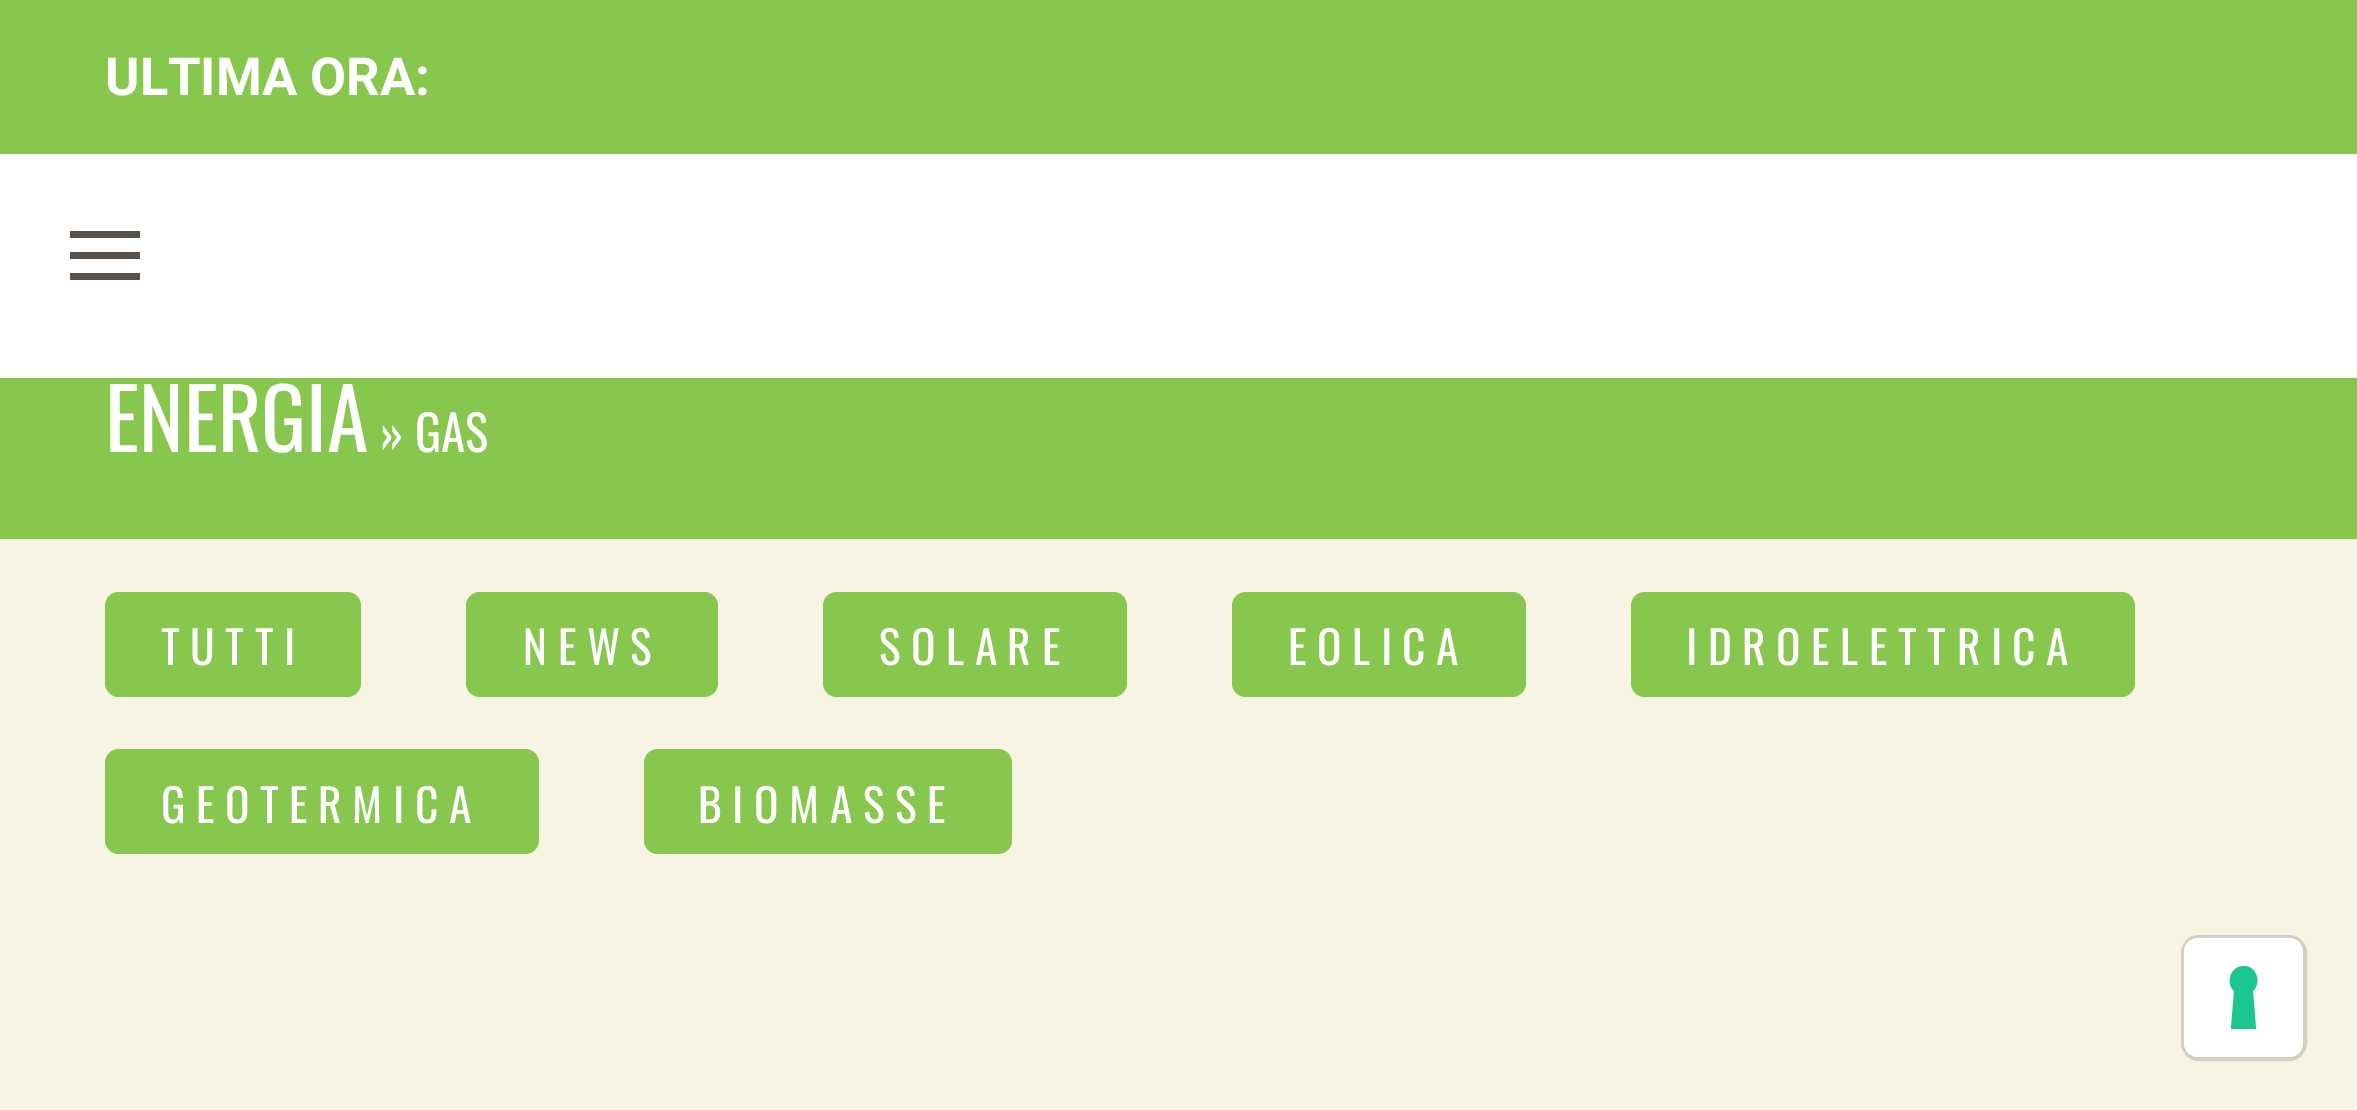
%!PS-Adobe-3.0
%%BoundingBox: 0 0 2357 1110
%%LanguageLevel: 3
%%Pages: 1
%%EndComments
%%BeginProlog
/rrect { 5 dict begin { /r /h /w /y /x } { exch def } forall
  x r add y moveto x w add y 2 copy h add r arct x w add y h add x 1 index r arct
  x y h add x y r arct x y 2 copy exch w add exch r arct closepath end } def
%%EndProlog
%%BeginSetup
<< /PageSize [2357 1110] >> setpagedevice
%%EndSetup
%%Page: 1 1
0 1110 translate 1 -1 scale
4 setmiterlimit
0.533 0.78 0.306 setrgbcolor
0 0 2357 1110 rectfill
1 setgray
0 154 2357 224 rectfill
0.349 0.318 0.286 setrgbcolor
70 231 70 7 rectfill
70 252 70 7 rectfill
70 273 70 7 rectfill
0.973 0.957 0.894 setrgbcolor
0 539 2357 571 rectfill
0.533 0.78 0.306 setrgbcolor
105 592 256 105 14 rrect fill
466 592 252 105 14 rrect fill
823 592 304 105 14 rrect fill
1232 592 294 105 14 rrect fill
1631 592 504 105 14 rrect fill
105 749 434 105 14 rrect fill
644 749 368 105 14 rrect fill
0.827 0.812 0.761 setrgbcolor
4 setlinewidth
2183 937 122 122 16 rrect stroke
1 setgray
2184 938 119 119 14 rrect fill
0.11 0.776 0.569 setrgbcolor
newpath 2244 966 moveto 2256 966 2262 982 2253 991 curveto 2256 1029 lineto 2231 1029 lineto 2234 991 lineto 2225 982 2231 966 2244 966 curveto closepath eofill
/Roboto-Bold [52.5 0 0 -52.5 0 0] selectfont
1 setgray
105 95 moveto (ULTIMA ORA:) show
/Oswald-Regular [84 0 0 -84 0 0] selectfont
105 452 moveto (ENERGIA) show
/Oswald-Regular [49 0 0 -49 0 0] selectfont
380 452 moveto (» GAS) show
/Oswald-Regular [45.5 0 0 -45.5 0 0] selectfont
161 665 moveto 10.5 0 (TUTTI) ashow
523 665 moveto 10.5 0 (NEWS) ashow
879 665 moveto 10.5 0 (SOLARE) ashow
1288 665 moveto 10.5 0 (EOLICA) ashow
1686 665 moveto 10.5 0 (IDROELETTRICA) ashow
161 823 moveto 10.5 0 (GEOTERMICA) ashow
698 823 moveto 10.5 0 (BIOMASSE) ashow
showpage
%%EOF
